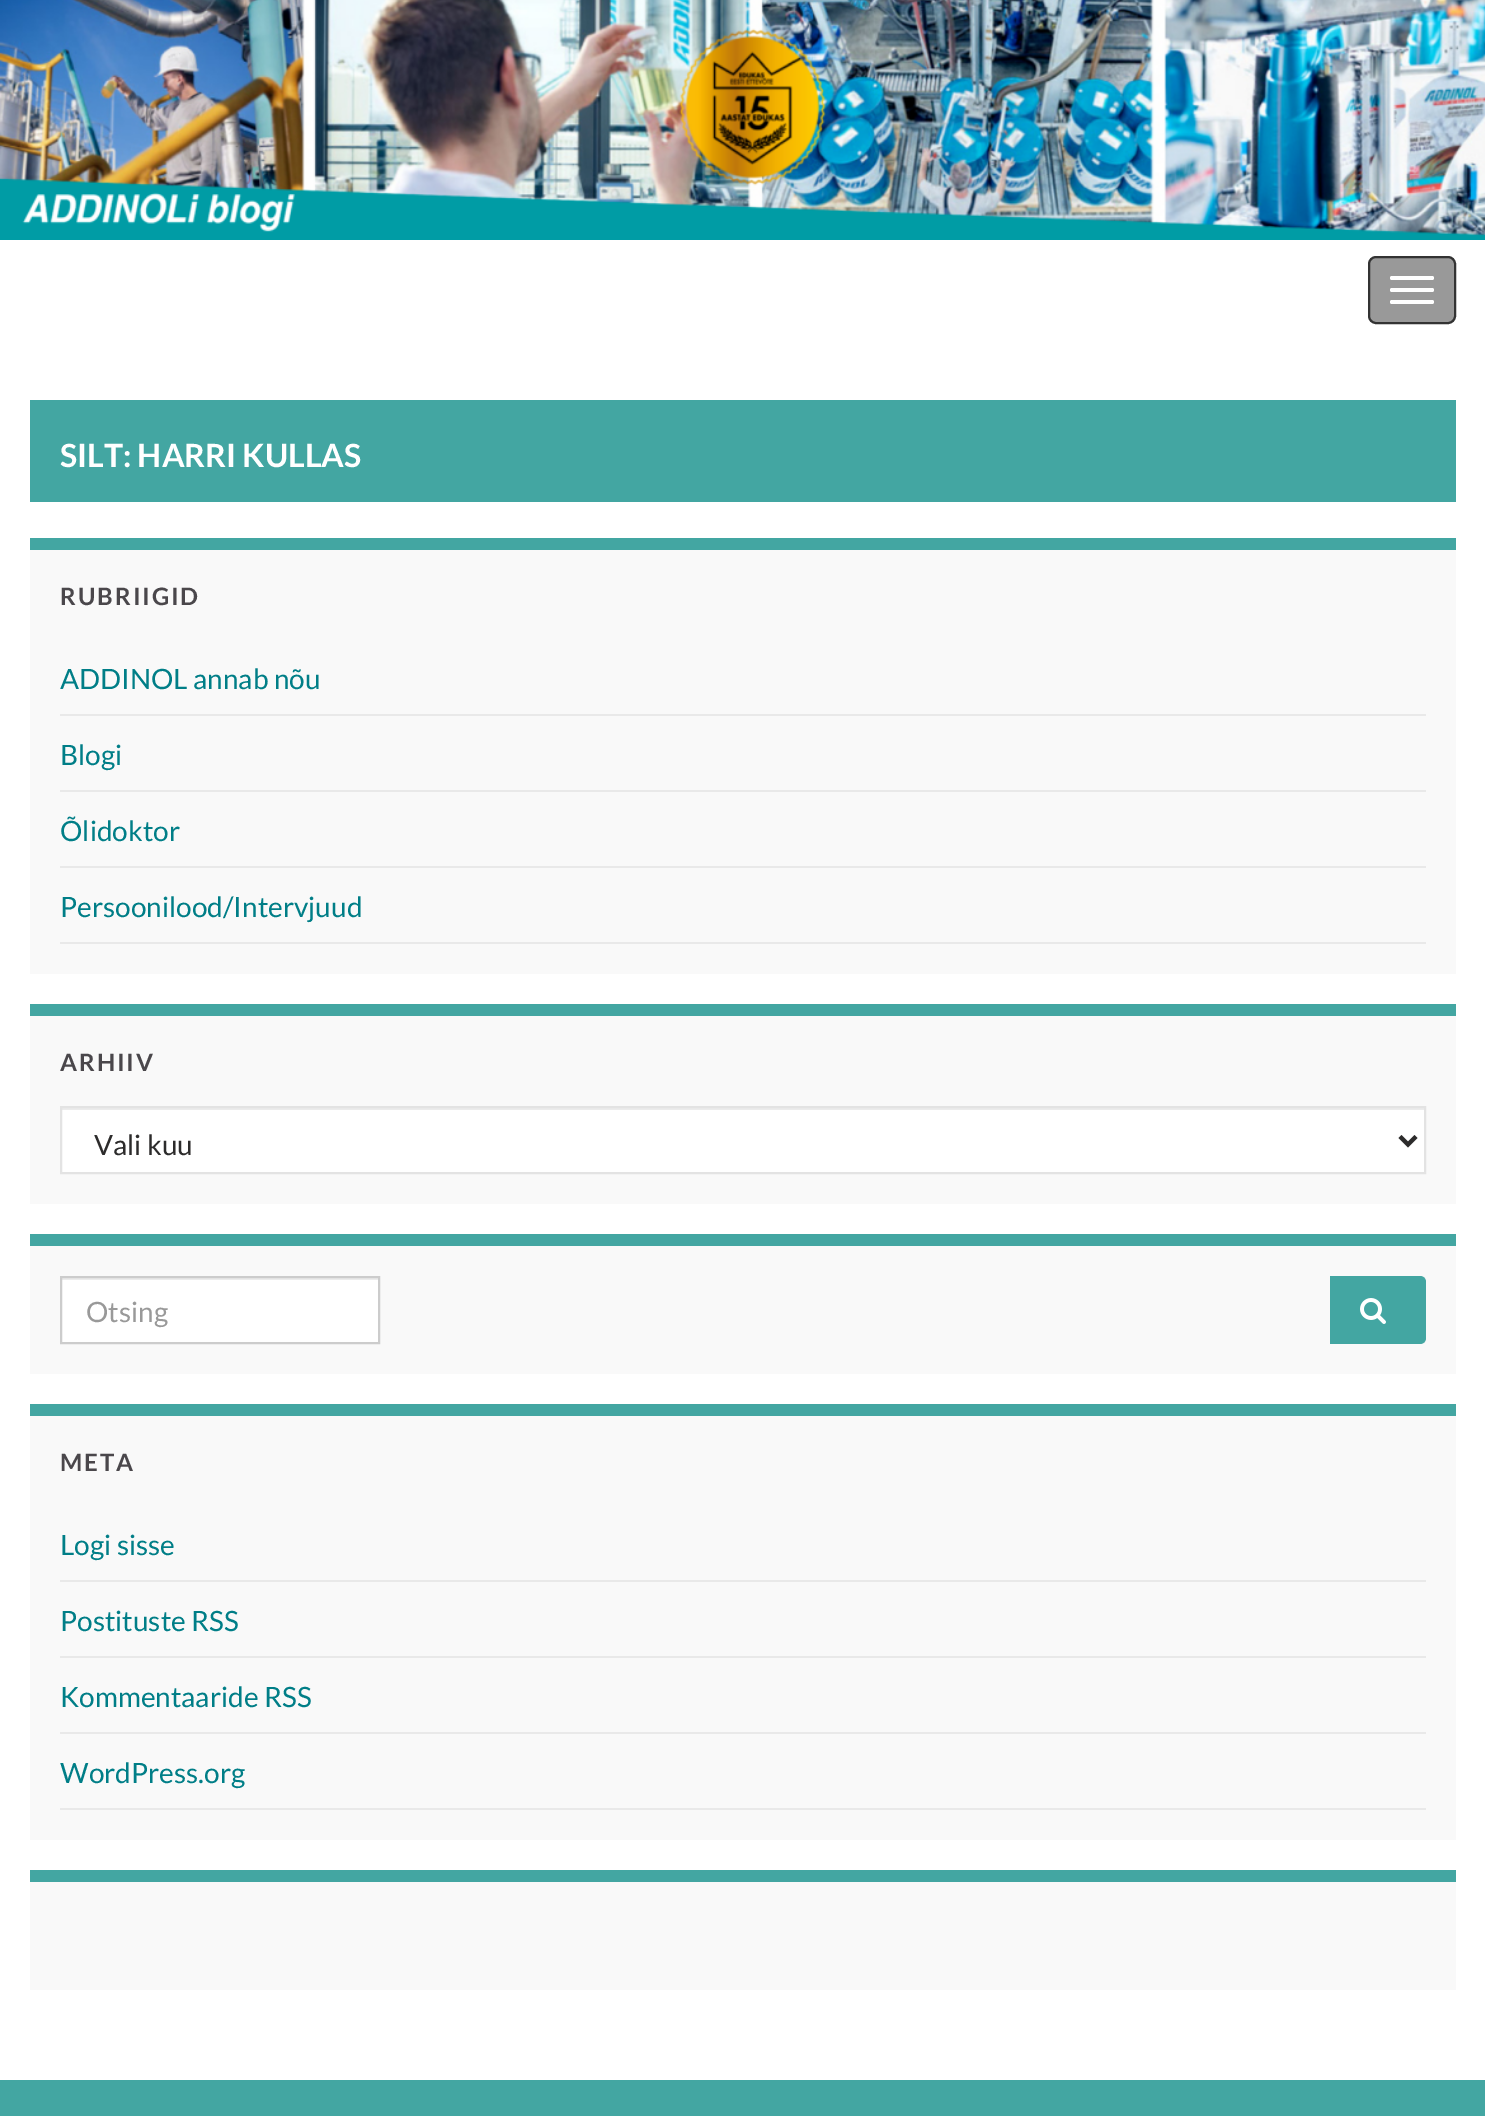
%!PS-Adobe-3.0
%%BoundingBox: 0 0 1485 2116
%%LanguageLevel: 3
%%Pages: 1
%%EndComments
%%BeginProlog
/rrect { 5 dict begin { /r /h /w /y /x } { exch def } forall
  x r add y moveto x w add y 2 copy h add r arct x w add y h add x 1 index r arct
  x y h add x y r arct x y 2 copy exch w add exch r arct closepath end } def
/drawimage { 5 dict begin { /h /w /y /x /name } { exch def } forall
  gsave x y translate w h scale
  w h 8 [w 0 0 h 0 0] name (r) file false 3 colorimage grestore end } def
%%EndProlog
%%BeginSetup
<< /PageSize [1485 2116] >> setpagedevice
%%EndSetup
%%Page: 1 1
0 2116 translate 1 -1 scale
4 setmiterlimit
1 setgray
0 0 1485 2116 rectfill
(images/1.raw) 0 0 1485 240 drawimage
0.6 setgray
1369 257 86 66 7 rrect gsave fill grestore
0.2 setgray
2 setlinewidth
stroke
1 setgray
1390 276 44 4 2 rrect fill
1390 288 44 4 2 rrect fill
1390 300 44 4 2 rrect fill
0.263 0.651 0.635 setrgbcolor
30 400 1426 102 rectfill
0.976 setgray
30 550 1426 424 rectfill
0.263 0.651 0.635 setrgbcolor
30 538 1426 12 rectfill
0.914 setgray
60 714 1366 2 rectfill
60 790 1366 2 rectfill
60 866 1366 2 rectfill
60 942 1366 2 rectfill
0.976 setgray
30 1016 1426 188 rectfill
0.263 0.651 0.635 setrgbcolor
30 1004 1426 12 rectfill
1 setgray
62 1110 1362 62 rectfill
0.925 setgray
62 1108 1362 2 rectfill
0.89 setgray
61 1107 1364 66 rectstroke
0.173 0.169 0.169 setrgbcolor
4 setlinewidth
newpath 1400 1136.5 moveto 1408 1144.5 lineto 1416 1136.5 lineto stroke
0.976 setgray
30 1246 1426 128 rectfill
0.263 0.651 0.635 setrgbcolor
30 1234 1426 12 rectfill
1 setgray
62 1280 316 62 rectfill
0.925 setgray
62 1278 316 2 rectfill
0.8 setgray
2 setlinewidth
61 1277 318 66 rectstroke
0.263 0.651 0.635 setrgbcolor
newpath 1330 1276 moveto 1420 1276 lineto 1423.5 1276 1426 1278.5 1426 1282 curveto 1426 1338 lineto 1426 1341.5 1423.5 1344 1420 1344 curveto 1330 1344 lineto closepath fill
(images/2.raw) 1360 1298 26 26 drawimage
0.976 setgray
30 1416 1426 424 rectfill
0.263 0.651 0.635 setrgbcolor
30 1404 1426 12 rectfill
0.914 setgray
60 1580 1366 2 rectfill
60 1656 1366 2 rectfill
60 1732 1366 2 rectfill
60 1808 1366 2 rectfill
0.976 setgray
30 1882 1426 108 rectfill
0.263 0.651 0.635 setrgbcolor
30 1870 1426 12 rectfill
0 2080 1485 36 rectfill
/Lato-Bold [32 0 0 -32 0 0] selectfont
1 setgray
60 467 moveto (SILT: HARRI KULLAS) show
/Lato-Bold [24 0 0 -24 0 0] selectfont
0.29 0.278 0.294 setrgbcolor
60 605 moveto 2 0 (RUBRIIGID) ashow
/Lato-Regular [28 0 0 -28 0 0] selectfont
0 0.494 0.529 setrgbcolor
60 689 moveto (ADDINOL annab nõu) show
60 765 moveto (Blogi) show
60 841 moveto (Õlidoktor) show
60 917 moveto (Persoonilood/Intervjuud) show
/Lato-Bold [24 0 0 -24 0 0] selectfont
0.29 0.278 0.294 setrgbcolor
60 1071 moveto 2 0 (ARHIIV) ashow
/Lato-Regular [28 0 0 -28 0 0] selectfont
0.173 0.169 0.169 setrgbcolor
94 1155 moveto (Vali kuu) show
0.6 setgray
86 1322 moveto (Otsing) show
/Lato-Bold [24 0 0 -24 0 0] selectfont
0.29 0.278 0.294 setrgbcolor
60 1471 moveto 2 0 (META) ashow
/Lato-Regular [28 0 0 -28 0 0] selectfont
0 0.494 0.529 setrgbcolor
60 1555 moveto (Logi sisse) show
60 1631 moveto (Postituste RSS) show
60 1707 moveto (Kommentaaride RSS) show
60 1783 moveto (WordPress.org) show
showpage
%%EOF
